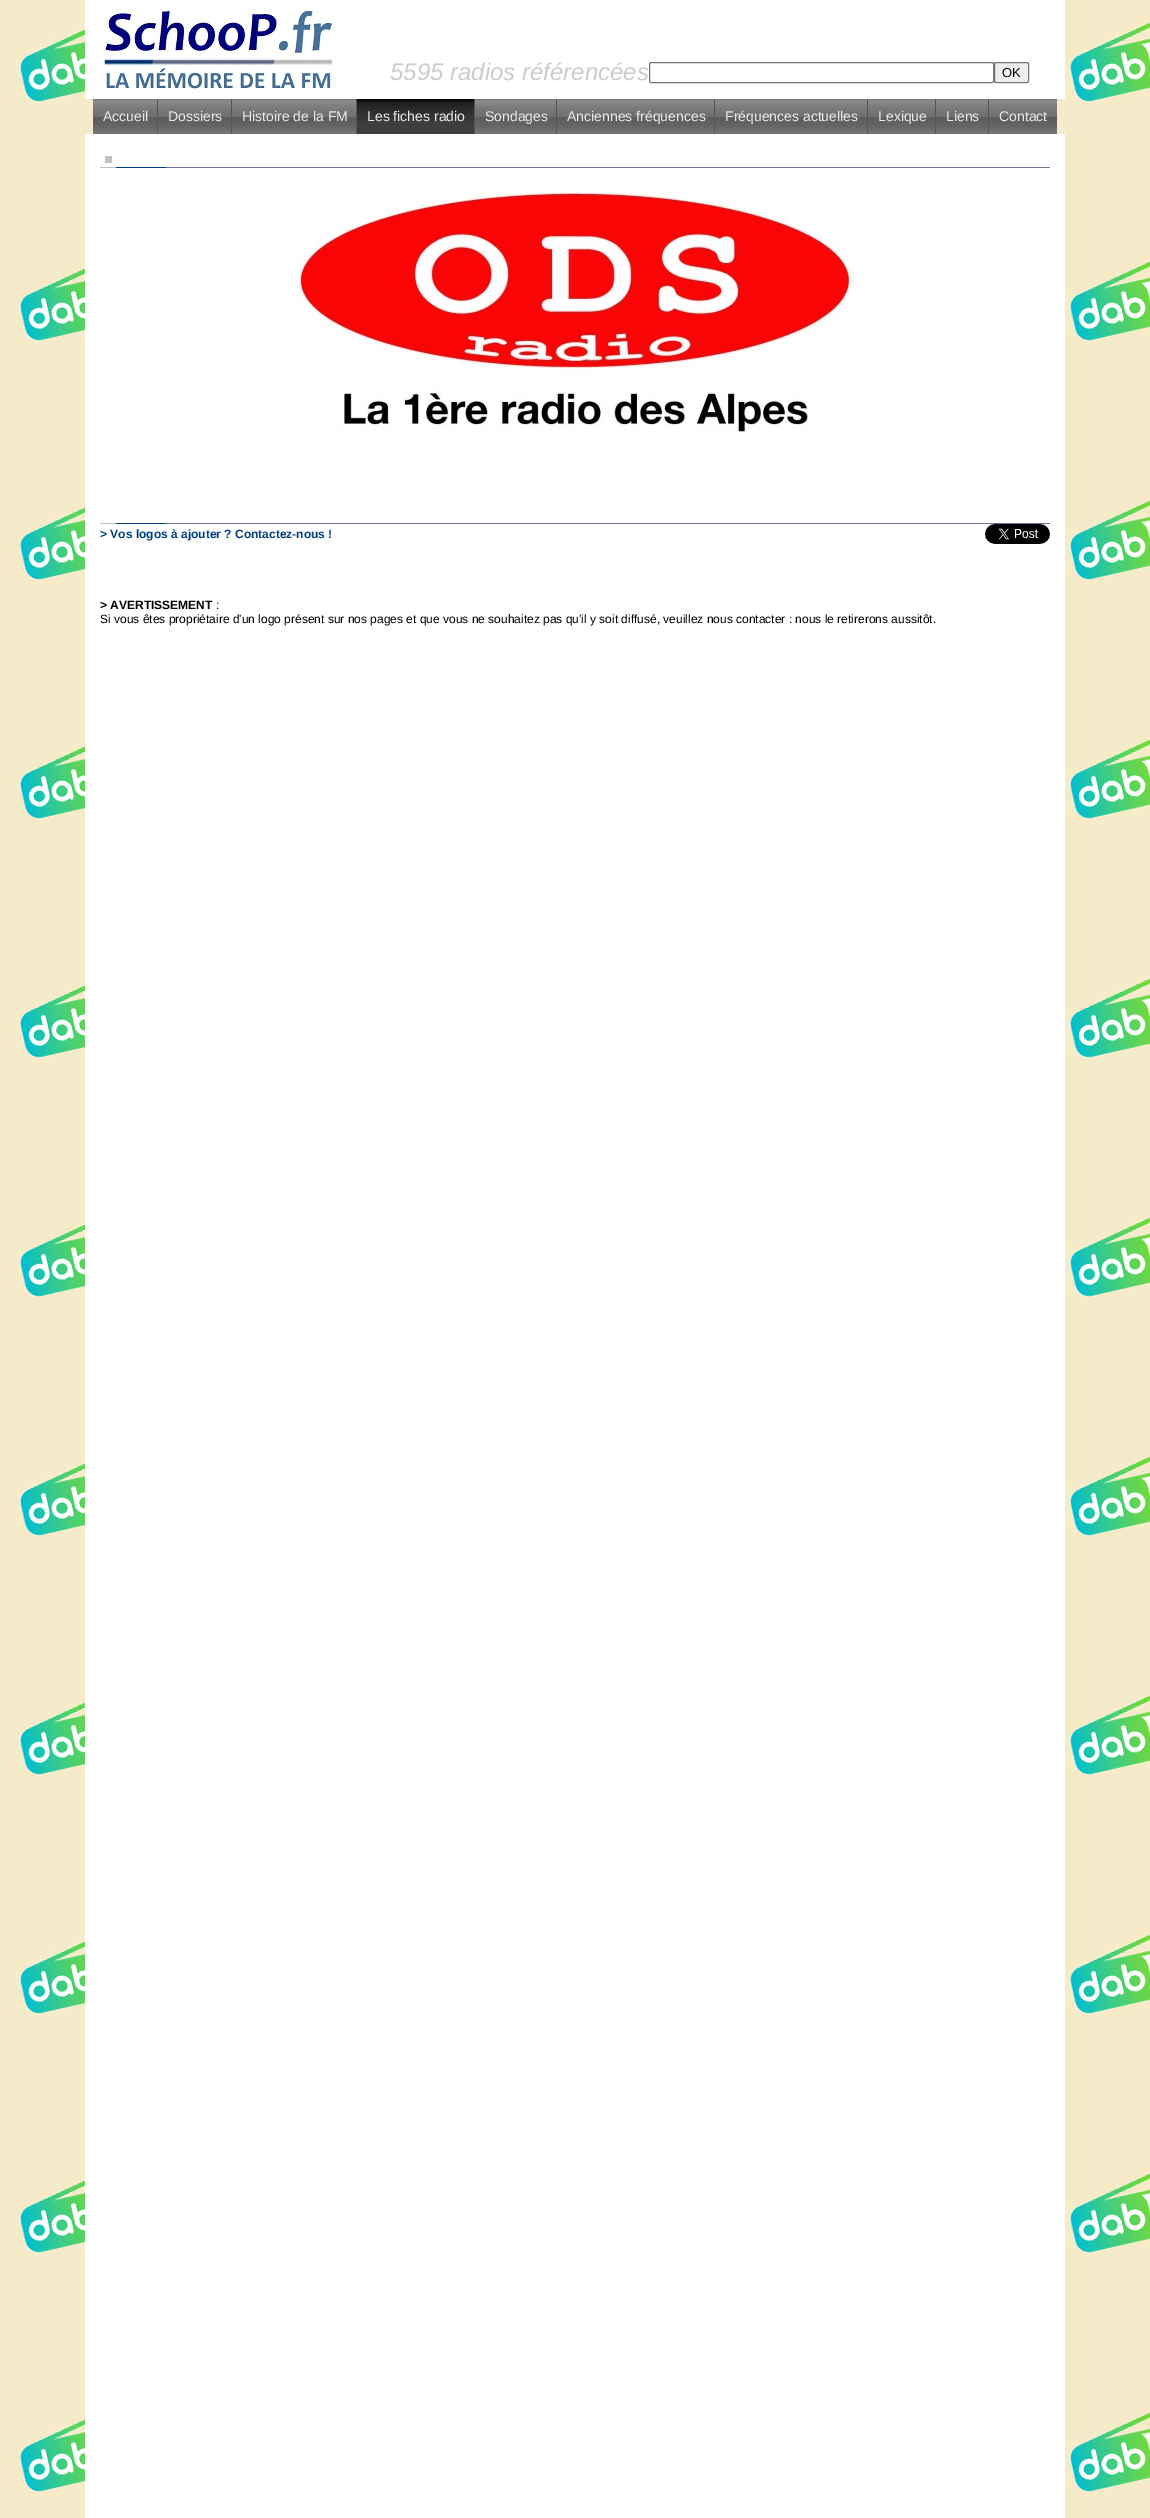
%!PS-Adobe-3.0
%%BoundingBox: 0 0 1150 2518
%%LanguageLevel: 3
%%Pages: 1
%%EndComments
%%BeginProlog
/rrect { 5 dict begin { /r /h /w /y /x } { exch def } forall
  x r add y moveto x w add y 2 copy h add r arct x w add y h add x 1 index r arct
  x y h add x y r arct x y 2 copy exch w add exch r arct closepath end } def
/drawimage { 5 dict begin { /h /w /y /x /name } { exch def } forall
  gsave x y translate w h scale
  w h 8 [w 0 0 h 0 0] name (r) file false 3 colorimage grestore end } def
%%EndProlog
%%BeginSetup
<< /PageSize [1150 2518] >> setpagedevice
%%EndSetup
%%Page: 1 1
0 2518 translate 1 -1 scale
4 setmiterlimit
0.965 0.922 0.788 setrgbcolor
0 0 1150 2518 rectfill
(images/1.raw) 18 11 1132 2507 drawimage
1 setgray
85 0 980 99 rectfill
(images/2.raw) 101 8 238 91 drawimage
0.463 setgray
649.5 62.5 344 20 1.5 rrect stroke
0.937 setgray
994.5 62.5 34 20 1.5 rrect gsave fill grestore
0.463 setgray
stroke
(images/3.raw) 93 99 64 35 drawimage
(images/4.raw) 158 99 73 35 drawimage
0.333 setgray
157 99 1 35 rectfill
(images/5.raw) 232 99 124 35 drawimage
231 99 1 35 rectfill
(images/6.raw) 357 99 117 35 drawimage
356 99 1 35 rectfill
(images/7.raw) 475 99 81 35 drawimage
474 99 1 35 rectfill
(images/8.raw) 557 99 157 35 drawimage
556 99 1 35 rectfill
(images/9.raw) 715 99 152 35 drawimage
714 99 1 35 rectfill
(images/10.raw) 868 99 67 35 drawimage
867 99 1 35 rectfill
(images/11.raw) 936 99 52 35 drawimage
935 99 1 35 rectfill
(images/12.raw) 989 99 68 35 drawimage
988 99 1 35 rectfill
1 setgray
85 134 980 2384 rectfill
0.753 setgray
105 156 7 7 rectfill
0.42 0.463 0.58 setrgbcolor
166 167 884 1 rectfill
0.753 setgray
100 167 16 1 rectfill
0 0.251 0.502 setrgbcolor
116 167 50 1 rectfill
(images/13.raw) 299 191 557 241 drawimage
0.42 0.463 0.58 setrgbcolor
166 523 884 1 rectfill
0.753 setgray
100 523 16 1 rectfill
0 0.251 0.502 setrgbcolor
116 523 50 1 rectfill
(images/14.raw) 985 524 65 20 drawimage
/LiberationSans-Italic [24 0 0 -24 0 0] selectfont
0.8 setgray
390 80 moveto (5595 radios référencées) show
/LiberationSans-Regular [13 0 0 -13 0 0] selectfont
0 setgray
1002 77 moveto (OK) show
/LiberationSans-Regular [14 0 0 -14 0 0] selectfont
0.922 setgray
103 121 moveto (Accueil) show
168 121 moveto (Dossiers) show
242 121 moveto (Histoire de la FM) show
367 121 moveto (Les fiches radio) show
485 121 moveto (Sondages) show
567 121 moveto (Anciennes fréquences) show
725 121 moveto (Fréquences actuelles) show
878 121 moveto (Lexique) show
946 121 moveto (Liens) show
999 121 moveto (Contact) show
/LiberationSans-Bold [12 0 0 -12 0 0] selectfont
0 0.251 0.502 setrgbcolor
100 538 moveto (> Vos logos à ajouter ? Contactez-nous !) show
0 setgray
100 609 moveto (> AVERTISSEMENT) show
/LiberationSans-Regular [12 0 0 -12 0 0] selectfont
216 609 moveto (:) show
100 623 moveto (Si vous êtes propriétaire d'un logo présent sur nos pages et que vous ne souhaitez pas qu'il y soit diffusé, veuillez nous contacter : nous le retirerons aussitôt.) show
showpage
%%EOF
